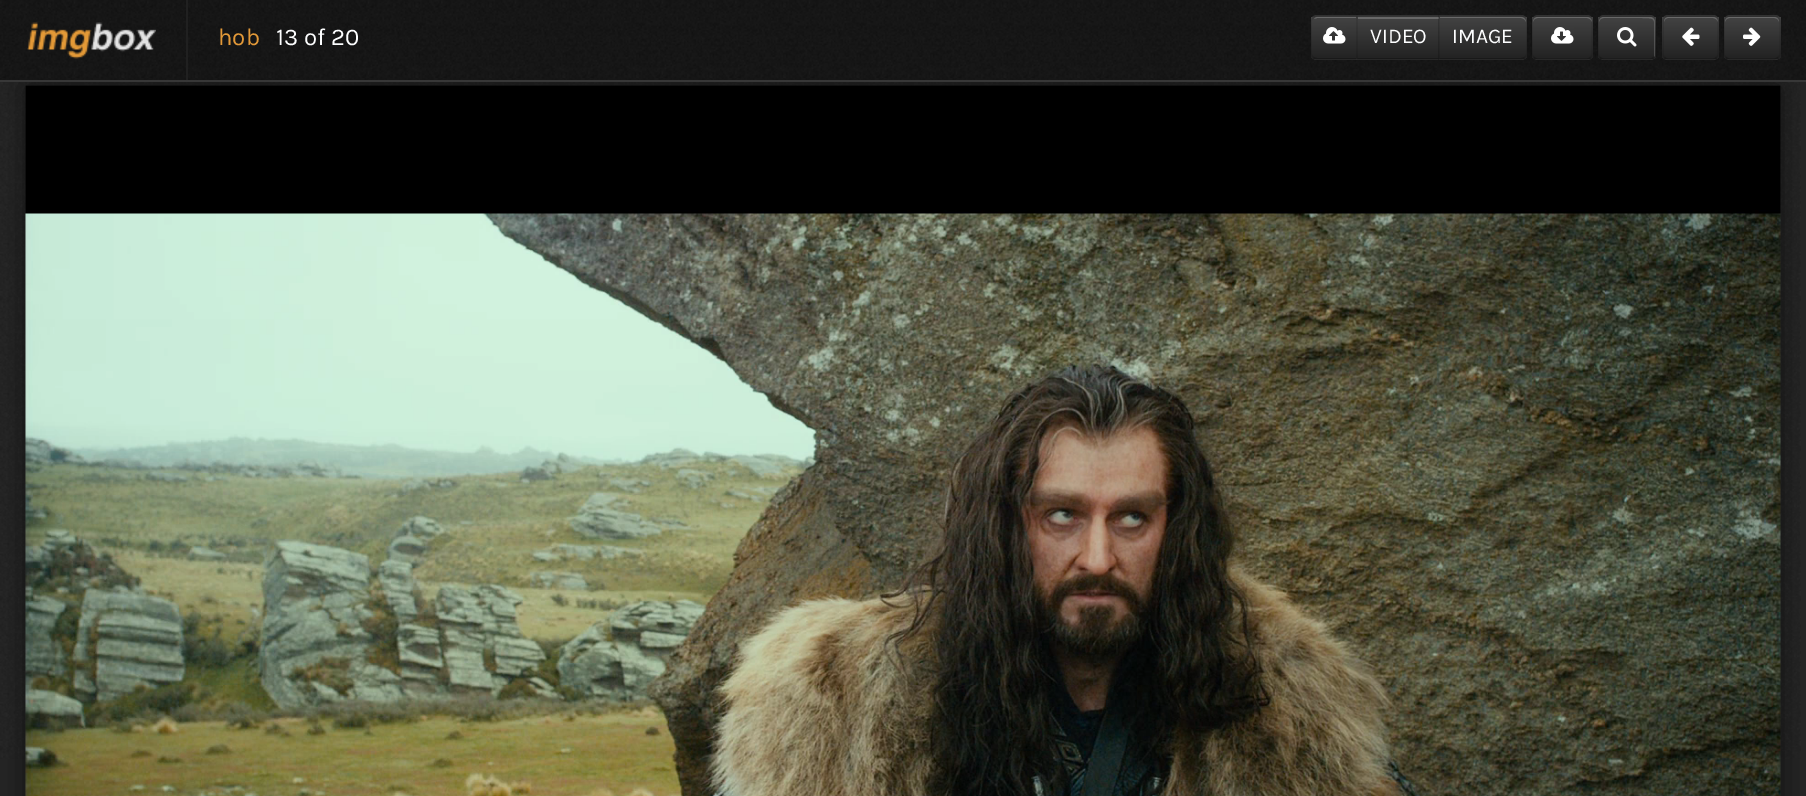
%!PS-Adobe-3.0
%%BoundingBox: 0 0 1806 796
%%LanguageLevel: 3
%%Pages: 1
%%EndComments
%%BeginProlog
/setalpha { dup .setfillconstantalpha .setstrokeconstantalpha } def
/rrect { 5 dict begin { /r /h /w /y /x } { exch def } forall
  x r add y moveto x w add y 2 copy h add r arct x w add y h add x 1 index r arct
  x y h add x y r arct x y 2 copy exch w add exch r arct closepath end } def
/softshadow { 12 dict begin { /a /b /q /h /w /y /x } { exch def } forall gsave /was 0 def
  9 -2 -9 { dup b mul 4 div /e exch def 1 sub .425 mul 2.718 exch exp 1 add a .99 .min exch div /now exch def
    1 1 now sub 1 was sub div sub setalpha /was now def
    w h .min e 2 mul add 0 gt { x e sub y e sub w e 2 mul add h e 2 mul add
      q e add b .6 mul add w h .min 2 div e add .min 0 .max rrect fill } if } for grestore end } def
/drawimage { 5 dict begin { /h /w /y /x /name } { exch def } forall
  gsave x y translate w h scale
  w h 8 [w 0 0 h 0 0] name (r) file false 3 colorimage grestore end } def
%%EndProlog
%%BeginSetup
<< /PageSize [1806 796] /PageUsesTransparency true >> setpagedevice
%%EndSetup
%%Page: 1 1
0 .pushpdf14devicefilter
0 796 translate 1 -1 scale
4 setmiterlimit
0.149 setgray
0 0 1806 796 rectfill
(images/1.raw) 0 82 1801 677 drawimage
0.067 setgray
26 86 1755 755 0 15 1 softshadow
(images/2.raw) 0 0 1806 80 drawimage
0.216 setgray
0 80 1806 2 rectfill
(images/3.raw) 27 22 129 37 drawimage
0.125 setgray
186 0 2 80 rectfill
0.212 setgray
newpath 1317 15 moveto 1358 15 lineto 1358 60 lineto 1317 60 lineto 1313.5 60 1311 57.5 1311 54 curveto 1311 21 lineto 1311 17.5 1313.5 15 1317 15 curveto closepath fill
gsave
newpath 1317 15 moveto 1358 15 lineto 1358 60 lineto 1317 60 lineto 1313.5 60 1311 57.5 1311 54 curveto 1311 21 lineto 1311 17.5 1313.5 15 1317 15 curveto closepath clip newpath
gsave newpath 1311 17 moveto 1356 17 lineto 1356 59 lineto 1311 59 lineto closepath clip newpath
<< /ShadingType 2 /ColorSpace /DeviceRGB /Coords [1334 16 1334 59] /Extend [true true] /Function << /FunctionType 2 /Domain [0 1] /C0 [0.267 0.267 0.267] /C1 [0.133 0.133 0.133] /N 1 >> >> shfill grestore
grestore
0.412 setgray
newpath 1317 18 moveto 1356 18 lineto 1356 17 lineto 1318 17 lineto 1316 17 1315 18 1314 19 curveto closepath fill
0.1 setalpha
0 setgray
newpath 1317 15 moveto 1316 15 1314 16 1313 17 curveto 1314 18 lineto 1315 17 1316 16 1317 16 curveto 1356 16 lineto 1358 15 lineto closepath fill
0.25 setalpha
newpath 1358 60 moveto 1356 58 lineto 1317 58 lineto 1314 57 lineto 1313 58 lineto 1314 59 1316 60 1317 60 curveto closepath fill
0.1 setalpha
newpath 1311 21 moveto 1311 54 lineto 1311 56 1312 57 1313 58 curveto 1314 57 lineto 1313 56 1312 55 1312 54 curveto 1312 21 lineto 1312 20 1313 19 1314 18 curveto 1313 17 lineto 1312 18 1311 20 1311 21 curveto closepath fill
1 setalpha
(images/4.raw) 1323 27 23 17 drawimage
0.212 setgray
1356 15 83 45 rectfill
gsave newpath 1356 17 moveto 1439 17 lineto 1439 59 lineto 1356 59 lineto closepath clip newpath
<< /ShadingType 2 /ColorSpace /DeviceRGB /Coords [1398 16 1398 59] /Extend [true true] /Function << /FunctionType 2 /Domain [0 1] /C0 [0.267 0.267 0.267] /C1 [0.133 0.133 0.133] /N 1 >> >> shfill grestore
0.408 setgray
1358 17 81 2 rectfill
0.192 setgray
newpath 1356 15 moveto 1440 15 lineto 1438 16 lineto 1358 16 lineto closepath fill
0.1 setalpha
0 setgray
newpath 1440 15 moveto 1440 60 lineto 1438 58 lineto 1438 16 lineto closepath fill
0.25 setalpha
newpath 1440 60 moveto 1356 60 lineto 1358 58 lineto 1438 58 lineto closepath fill
0.1 setalpha
newpath 1356 60 moveto 1356 15 lineto 1358 16 lineto 1358 58 lineto closepath fill
1 setalpha
0.212 setgray
newpath 1439 15 moveto 1521 15 lineto 1524.5 15 1527 17.5 1527 21 curveto 1527 54 lineto 1527 57.5 1524.5 60 1521 60 curveto 1439 60 lineto closepath fill
gsave
newpath 1439 15 moveto 1521 15 lineto 1524.5 15 1527 17.5 1527 21 curveto 1527 54 lineto 1527 57.5 1524.5 60 1521 60 curveto 1439 60 lineto closepath clip newpath
gsave newpath 1439 17 moveto 1527 17 lineto 1527 59 lineto 1439 59 lineto closepath clip newpath
<< /ShadingType 2 /ColorSpace /DeviceRGB /Coords [1483 16 1483 59] /Extend [true true] /Function << /FunctionType 2 /Domain [0 1] /C0 [0.267 0.267 0.267] /C1 [0.133 0.133 0.133] /N 1 >> >> shfill grestore
grestore
0.412 setgray
newpath 1440 18 moveto 1521 18 lineto 1523 18 1526 20 1526 22 curveto 1526 19 1524 17 1521 17 curveto 1440 17 lineto closepath fill
0.1 setalpha
0 setgray
newpath 1440 16 moveto 1521 16 lineto 1524 18 lineto 1525 17 lineto 1522 15 lineto 1438 15 lineto closepath fill
newpath 1527 54 moveto 1527 21 lineto 1527 20 1526 18 1525 17 curveto 1524 18 lineto 1525 19 1526 20 1526 21 curveto 1526 54 lineto 1526 55 1525 56 1524 57 curveto 1525 58 lineto 1526 57 1527 56 1527 54 curveto closepath fill
0.25 setalpha
newpath 1438 60 moveto 1522 60 lineto 1525 58 lineto 1524 57 lineto 1521 58 lineto 1440 58 lineto closepath fill
0.1 setalpha
newpath 1438 60 moveto 1440 58 lineto 1440 16 lineto 1438 15 lineto closepath fill
1 setalpha
0.212 setgray
1532 15 61 45 6 rrect fill
gsave
1532 15 61 45 6 rrect clip newpath
gsave newpath 1532 17 moveto 1593 17 lineto 1593 59 lineto 1532 59 lineto closepath clip newpath
<< /ShadingType 2 /ColorSpace /DeviceRGB /Coords [1562 16 1562 59] /Extend [true true] /Function << /FunctionType 2 /Domain [0 1] /C0 [0.267 0.267 0.267] /C1 [0.133 0.133 0.133] /N 1 >> >> shfill grestore
grestore
0.412 setgray
newpath 1538 18 moveto 1587 18 lineto 1589 18 1592 20 1592 22 curveto 1592 19 1590 17 1587 17 curveto 1538 17 lineto 1535 17 1533 19 1533 22 curveto 1533 20 1535 18 1538 18 curveto closepath fill
0.25 setalpha
0 setgray
1.5 setlinewidth
newpath 1590.5 57.5 moveto 1589.5 58.5 1588.5 59 1587 59 curveto 1537.5 59 lineto 1536 59 1535 58.5 1534 57.5 curveto stroke
0.1 setalpha
newpath 1534 57.5 moveto 1533 56.5 1532 55.5 1532 54 curveto 1532 21 lineto 1532 19.5 1533 18.5 1534 17.5 curveto 1535 16.5 1536 16 1537.5 16 curveto 1587 16 lineto 1588.5 16 1589.5 16.5 1590.5 17.5 curveto 1591.5 18.5 1592 19.5 1592 21 curveto 1592 54 lineto 1592 55.5 1591.5 56.5 1590.5 57.5 curveto stroke
1 setalpha
(images/5.raw) 1551 27 23 17 drawimage
0.212 setgray
1598 15 58 45 6 rrect fill
gsave
1598 15 58 45 6 rrect clip newpath
gsave newpath 1598 17 moveto 1656 17 lineto 1656 59 lineto 1598 59 lineto closepath clip newpath
<< /ShadingType 2 /ColorSpace /DeviceRGB /Coords [1627 16 1627 59] /Extend [true true] /Function << /FunctionType 2 /Domain [0 1] /C0 [0.267 0.267 0.267] /C1 [0.133 0.133 0.133] /N 1 >> >> shfill grestore
grestore
0.2 setalpha
1 setgray
newpath 1604 18 moveto 1642 18 lineto 1657 18 1654 19 1654 33 curveto 1654 57 lineto 1655 56 1655 55 1655 54 curveto 1655 22 lineto 1655 19 1653 17 1650 17 curveto 1604 17 lineto 1601 17 1599 19 1599 22 curveto 1599 20 1601 18 1604 18 curveto closepath fill
0.25 setalpha
0 setgray
newpath 1653.5 57.5 moveto 1652.5 58.5 1651.5 59 1650 59 curveto 1603.5 59 lineto 1602 59 1601 58.5 1600 57.5 curveto stroke
0.1 setalpha
newpath 1600 57.5 moveto 1599 56.5 1598 55.5 1598 54 curveto 1598 21 lineto 1598 19.5 1599 18.5 1600 17.5 curveto 1601 16.5 1602 16 1603.5 16 curveto 1650 16 lineto 1651.5 16 1652.5 16.5 1653.5 17.5 curveto 1654.5 18.5 1655 19.5 1655 21 curveto 1655 54 lineto 1655 55.5 1654.5 56.5 1653.5 57.5 curveto stroke
1 setalpha
(images/6.raw) 1617 27 20 20 drawimage
0.212 setgray
1662 15 57 45 6 rrect fill
gsave
1662 15 57 45 6 rrect clip newpath
gsave newpath 1662 17 moveto 1719 17 lineto 1719 59 lineto 1662 59 lineto closepath clip newpath
<< /ShadingType 2 /ColorSpace /DeviceRGB /Coords [1691 16 1691 59] /Extend [true true] /Function << /FunctionType 2 /Domain [0 1] /C0 [0.267 0.267 0.267] /C1 [0.133 0.133 0.133] /N 1 >> >> shfill grestore
grestore
0.412 setgray
newpath 1668 18 moveto 1713 18 lineto 1715 18 1718 20 1718 22 curveto 1718 19 1716 17 1713 17 curveto 1669 17 lineto 1666 17 1664 19 1664 22 curveto 1664 20 1666 18 1668 18 curveto closepath fill
0.25 setalpha
0 setgray
newpath 1716.5 57.5 moveto 1715.5 58.5 1714.5 59 1713 59 curveto 1668 59 lineto 1666.5 59 1665.5 58.5 1664.5 57.5 curveto stroke
0.1 setalpha
newpath 1664.5 57.5 moveto 1663.5 56.5 1663 55.5 1663 54 curveto 1663 21 lineto 1663 19.5 1663.5 18.5 1664.5 17.5 curveto 1665.5 16.5 1666.5 16 1668 16 curveto 1713 16 lineto 1714.5 16 1715.5 16.5 1716.5 17.5 curveto 1717.5 18.5 1718 19.5 1718 21 curveto 1718 54 lineto 1718 55.5 1717.5 56.5 1716.5 57.5 curveto stroke
1 setalpha
(images/7.raw) 1682 27 18 19 drawimage
0.212 setgray
1724 15 57 45 6 rrect fill
gsave
1724 15 57 45 6 rrect clip newpath
gsave newpath 1724 17 moveto 1781 17 lineto 1781 59 lineto 1724 59 lineto closepath clip newpath
<< /ShadingType 2 /ColorSpace /DeviceRGB /Coords [1752 16 1752 59] /Extend [true true] /Function << /FunctionType 2 /Domain [0 1] /C0 [0.267 0.267 0.267] /C1 [0.133 0.133 0.133] /N 1 >> >> shfill grestore
grestore
0.412 setgray
newpath 1730 18 moveto 1774 18 lineto 1777 18 1779 20 1779 22 curveto 1779 19 1777 17 1774 17 curveto 1730 17 lineto 1727 17 1725 19 1725 22 curveto 1725 20 1727 18 1730 18 curveto closepath fill
0.25 setalpha
0 setgray
newpath 1778 57.5 moveto 1777 58.5 1776 59 1774.5 59 curveto 1729.5 59 lineto 1728 59 1727 58.5 1726 57.5 curveto stroke
0.1 setalpha
newpath 1726 57.5 moveto 1725 56.5 1724 55.5 1724 54 curveto 1724 21 lineto 1724 19.5 1725 18.5 1726 17.5 curveto 1727 16.5 1728 16 1729.5 16 curveto 1774.5 16 lineto 1776 16 1777 16.5 1778 17.5 curveto 1779 18.5 1780 19.5 1780 21 curveto 1780 54 lineto 1780 55.5 1779 56.5 1778 57.5 curveto stroke
1 setalpha
(images/8.raw) 1743 27 18 19 drawimage
(images/9.raw) 25 85 1756 711 drawimage
/Karla-Regular [24 0 0 -24 0 0] selectfont
0.89 0.6 0.22 setrgbcolor
218 45 moveto (hob) show
0.992 0.996 1 setrgbcolor
276 45 moveto (13 of 20) show
/Karla-Regular [21 0 0 -21 0 0] selectfont
1370 43 moveto (VIDEO) show
1452 43 moveto (IMAGE) show
.poppdf14devicefilter showpage
%%EOF
